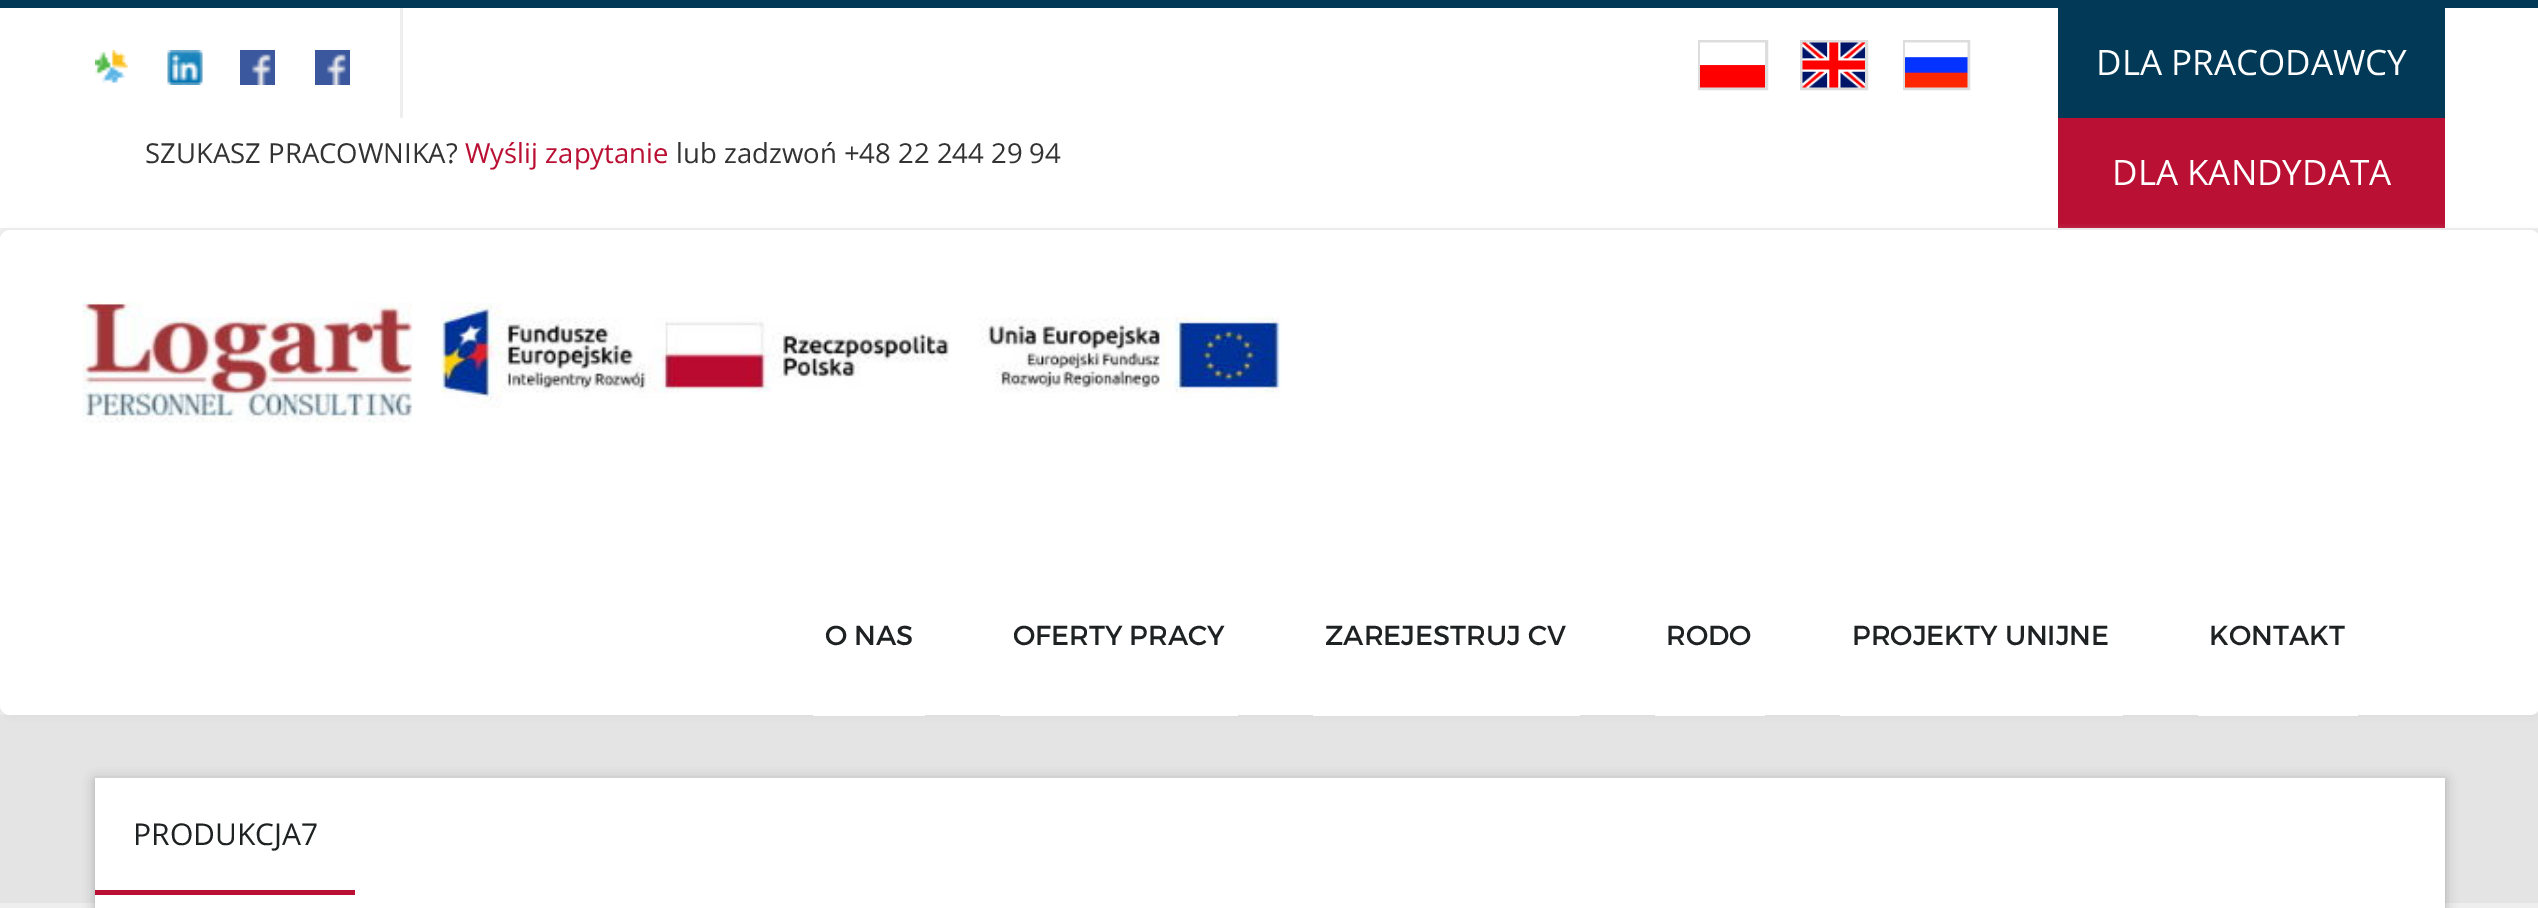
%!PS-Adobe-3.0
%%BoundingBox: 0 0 2538 908
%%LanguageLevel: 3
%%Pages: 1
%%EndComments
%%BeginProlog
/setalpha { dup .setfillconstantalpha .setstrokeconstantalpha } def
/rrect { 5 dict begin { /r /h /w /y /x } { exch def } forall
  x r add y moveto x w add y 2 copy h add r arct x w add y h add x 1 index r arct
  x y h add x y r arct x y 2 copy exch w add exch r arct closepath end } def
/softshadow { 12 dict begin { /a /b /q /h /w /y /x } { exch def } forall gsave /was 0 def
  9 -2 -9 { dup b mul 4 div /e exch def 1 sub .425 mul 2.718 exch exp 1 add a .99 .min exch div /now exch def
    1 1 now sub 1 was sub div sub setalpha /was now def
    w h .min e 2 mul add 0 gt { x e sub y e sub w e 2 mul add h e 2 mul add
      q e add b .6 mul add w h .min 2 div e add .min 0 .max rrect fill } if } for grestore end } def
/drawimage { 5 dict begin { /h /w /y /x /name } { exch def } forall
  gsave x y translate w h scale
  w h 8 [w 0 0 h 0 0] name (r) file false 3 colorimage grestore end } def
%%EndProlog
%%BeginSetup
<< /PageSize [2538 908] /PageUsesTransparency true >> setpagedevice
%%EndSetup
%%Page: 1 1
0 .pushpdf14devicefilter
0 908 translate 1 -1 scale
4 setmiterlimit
0.933 setgray
0 0 2538 908 rectfill
1 setgray
0 8 2538 220 rectfill
0.008 0.224 0.337 setrgbcolor
0 0 2538 8 rectfill
0.933 setgray
400 8 3 110 rectfill
(images/1.raw) 95 50 33 33 drawimage
(images/2.raw) 167 50 36 35 drawimage
(images/3.raw) 240 50 35 35 drawimage
(images/4.raw) 315 50 35 35 drawimage
0.867 setgray
3 setlinewidth
1699.5 41.5 67 47 rectstroke
1801.5 41.5 65 47 rectstroke
1904.5 41.5 64 47 rectstroke
(images/5.raw) 1700 42 65 46 drawimage
(images/6.raw) 1802 42 63 46 drawimage
(images/7.raw) 1905 42 63 46 drawimage
0.008 0.224 0.337 setrgbcolor
2058 8 387 110 rectfill
0.725 0.063 0.204 setrgbcolor
2058 118 387 110 rectfill
0.894 setgray
0 715 2538 188 rectfill
0.867 setgray
3 233 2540 485 10 4 1 softshadow
1 setgray
0 230 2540 485 10 rrect fill
(images/8.raw) 82 302 1199 121 drawimage
813 715 112 1 rectfill
1000 715 238 1 rectfill
1313 715 267 1 rectfill
1655 715 110 1 rectfill
1840 715 283 1 rectfill
2198 715 160 1 rectfill
95 778 2350 130 rectfill
gsave
newpath 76 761 moveto 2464 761 lineto 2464 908 lineto 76 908 lineto closepath 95 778 moveto 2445 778 lineto 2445 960 lineto 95 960 lineto closepath eoclip newpath
0 setgray
95 780 2350 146 0 6 0.25 softshadow
grestore
0.725 0.063 0.204 setrgbcolor
95 890 260 5 rectfill
/OpenSans-Regular [27.5 0 0 -27.5 0 0] selectfont
0.2 setgray
145 163 moveto (SZUKASZ PRACOWNIKA?) show
0.725 0.063 0.204 setrgbcolor
465 163 moveto (Wyślij zapytanie) show
0.2 setgray
676 163 moveto (lub zadzwoń +48 22 244 29 94) show
/OpenSans-Regular [35 0 0 -35 0 0] selectfont
1 setgray
2096 75 moveto (DLA PRACODAWCY) show
2112 185 moveto (DLA KANDYDATA) show
/Montserrat-Regular [27.5 0 0 -27.5 0 0] selectfont
0.122 0.133 0.137 setrgbcolor
825 645 moveto (O NAS) show
1013 645 moveto (OFERTY PRACY) show
1325 645 moveto (ZAREJESTRUJ CV) show
1666 645 moveto (RODO) show
1852 645 moveto (PROJEKTY UNIJNE) show
2209 645 moveto (KONTAKT) show
/OpenSans-Regular [30 0 0 -30 0 0] selectfont
133 845 moveto (PRODUKCJA7) show
.poppdf14devicefilter showpage
%%EOF
